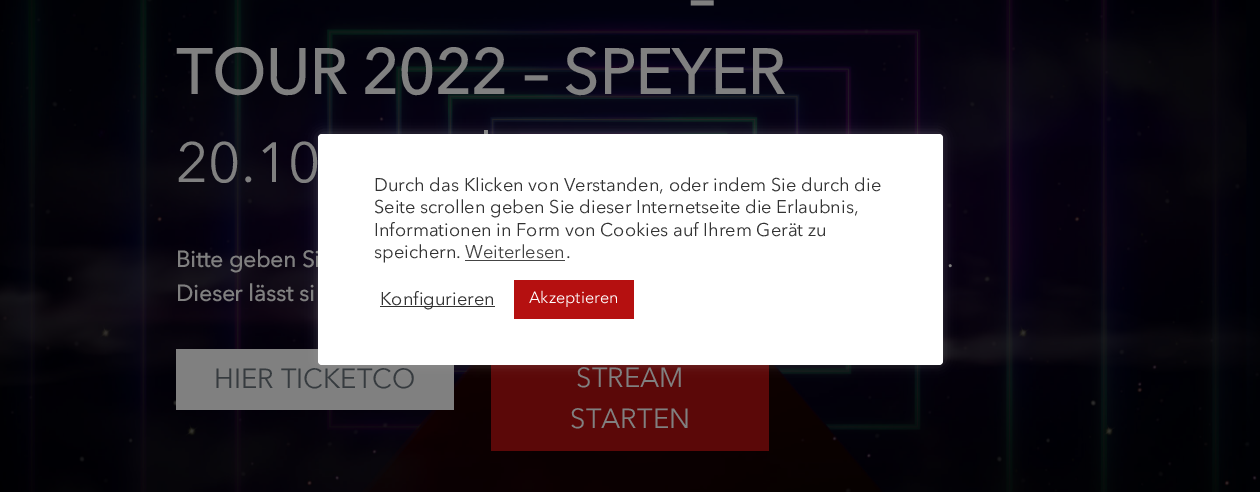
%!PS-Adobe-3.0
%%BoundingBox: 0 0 1260 492
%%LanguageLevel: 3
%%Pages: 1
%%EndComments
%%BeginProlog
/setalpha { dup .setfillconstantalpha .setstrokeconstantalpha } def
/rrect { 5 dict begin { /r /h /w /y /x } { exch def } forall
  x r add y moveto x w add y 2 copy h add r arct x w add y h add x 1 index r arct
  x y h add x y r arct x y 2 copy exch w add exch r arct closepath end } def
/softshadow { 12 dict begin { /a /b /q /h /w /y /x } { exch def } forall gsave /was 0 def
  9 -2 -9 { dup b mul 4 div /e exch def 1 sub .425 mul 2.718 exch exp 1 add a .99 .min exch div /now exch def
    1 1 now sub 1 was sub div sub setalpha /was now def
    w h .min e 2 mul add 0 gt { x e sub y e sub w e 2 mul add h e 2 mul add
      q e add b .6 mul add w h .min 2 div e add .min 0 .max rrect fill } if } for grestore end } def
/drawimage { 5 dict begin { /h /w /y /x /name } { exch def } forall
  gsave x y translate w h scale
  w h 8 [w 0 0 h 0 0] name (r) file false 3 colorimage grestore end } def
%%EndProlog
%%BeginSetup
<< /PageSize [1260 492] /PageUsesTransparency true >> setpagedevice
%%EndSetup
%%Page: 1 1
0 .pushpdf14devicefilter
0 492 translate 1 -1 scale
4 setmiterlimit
1 setgray
0 0 1260 492 rectfill
(images/1.raw) 0 0 1260 492 drawimage
0.502 setgray
484 130 4 4 rectfill
176 349 278 61 rectfill
0.357 0.031 0.031 setrgbcolor
491 365 278 86 rectfill
0.675 0.671 0.671 setrgbcolor
318 133 625 231 4 6 0.3 softshadow
/AvenirNext-Bold [62.5 0 0 -62.5 0 0] selectfont
0.502 setgray
689 19 moveto (–) show
176 94 moveto (TOUR 2022 – SPEYER) show
/AvenirNext-Regular [56 0 0 -56 0 0] selectfont
176 182 moveto (20.10) show
/AvenirNext-Bold [22.5 0 0 -22.5 0 0] selectfont
176 267 moveto (Bitte geben Si) show
947 267 moveto (.) show
176 301 moveto (Dieser lässt si) show
/AvenirNext-Regular [27.5 0 0 -27.5 0 0] selectfont
0.212 0.231 0.247 setrgbcolor
214 388 moveto (HIER TICKETCO) show
0.502 setgray
576 387 moveto (STREAM) show
570 428 moveto (STARTEN) show
1 setgray
318 134 625 231 4 rrect fill
/AvenirNext-Regular [18.3 0 0 -18.3 0 0] selectfont
0.2 setgray
374 191 moveto (Durch das Klicken von Verstanden, oder indem Sie durch die) show
374 213 moveto (Seite scrollen geben Sie dieser Internetseite die Erlaubnis,) show
374 236 moveto (Informationen in Form von Cookies auf Ihrem Gerät zu) show
374 258 moveto (speichern.) show
0.267 setgray
465 258 moveto (Weiterlesen) show
465 260 100 1 rectfill
0.2 setgray
566 258 moveto (.) show
380 306 115 1 rectfill
380 305 moveto (Konfigurieren) show
0.71 0.063 0.063 setrgbcolor
514 280 120 39 rectfill
/AvenirNext-Regular [16.25 0 0 -16.25 0 0] selectfont
1 setgray
529 303 moveto (Akzeptieren) show
.poppdf14devicefilter showpage
%%EOF
